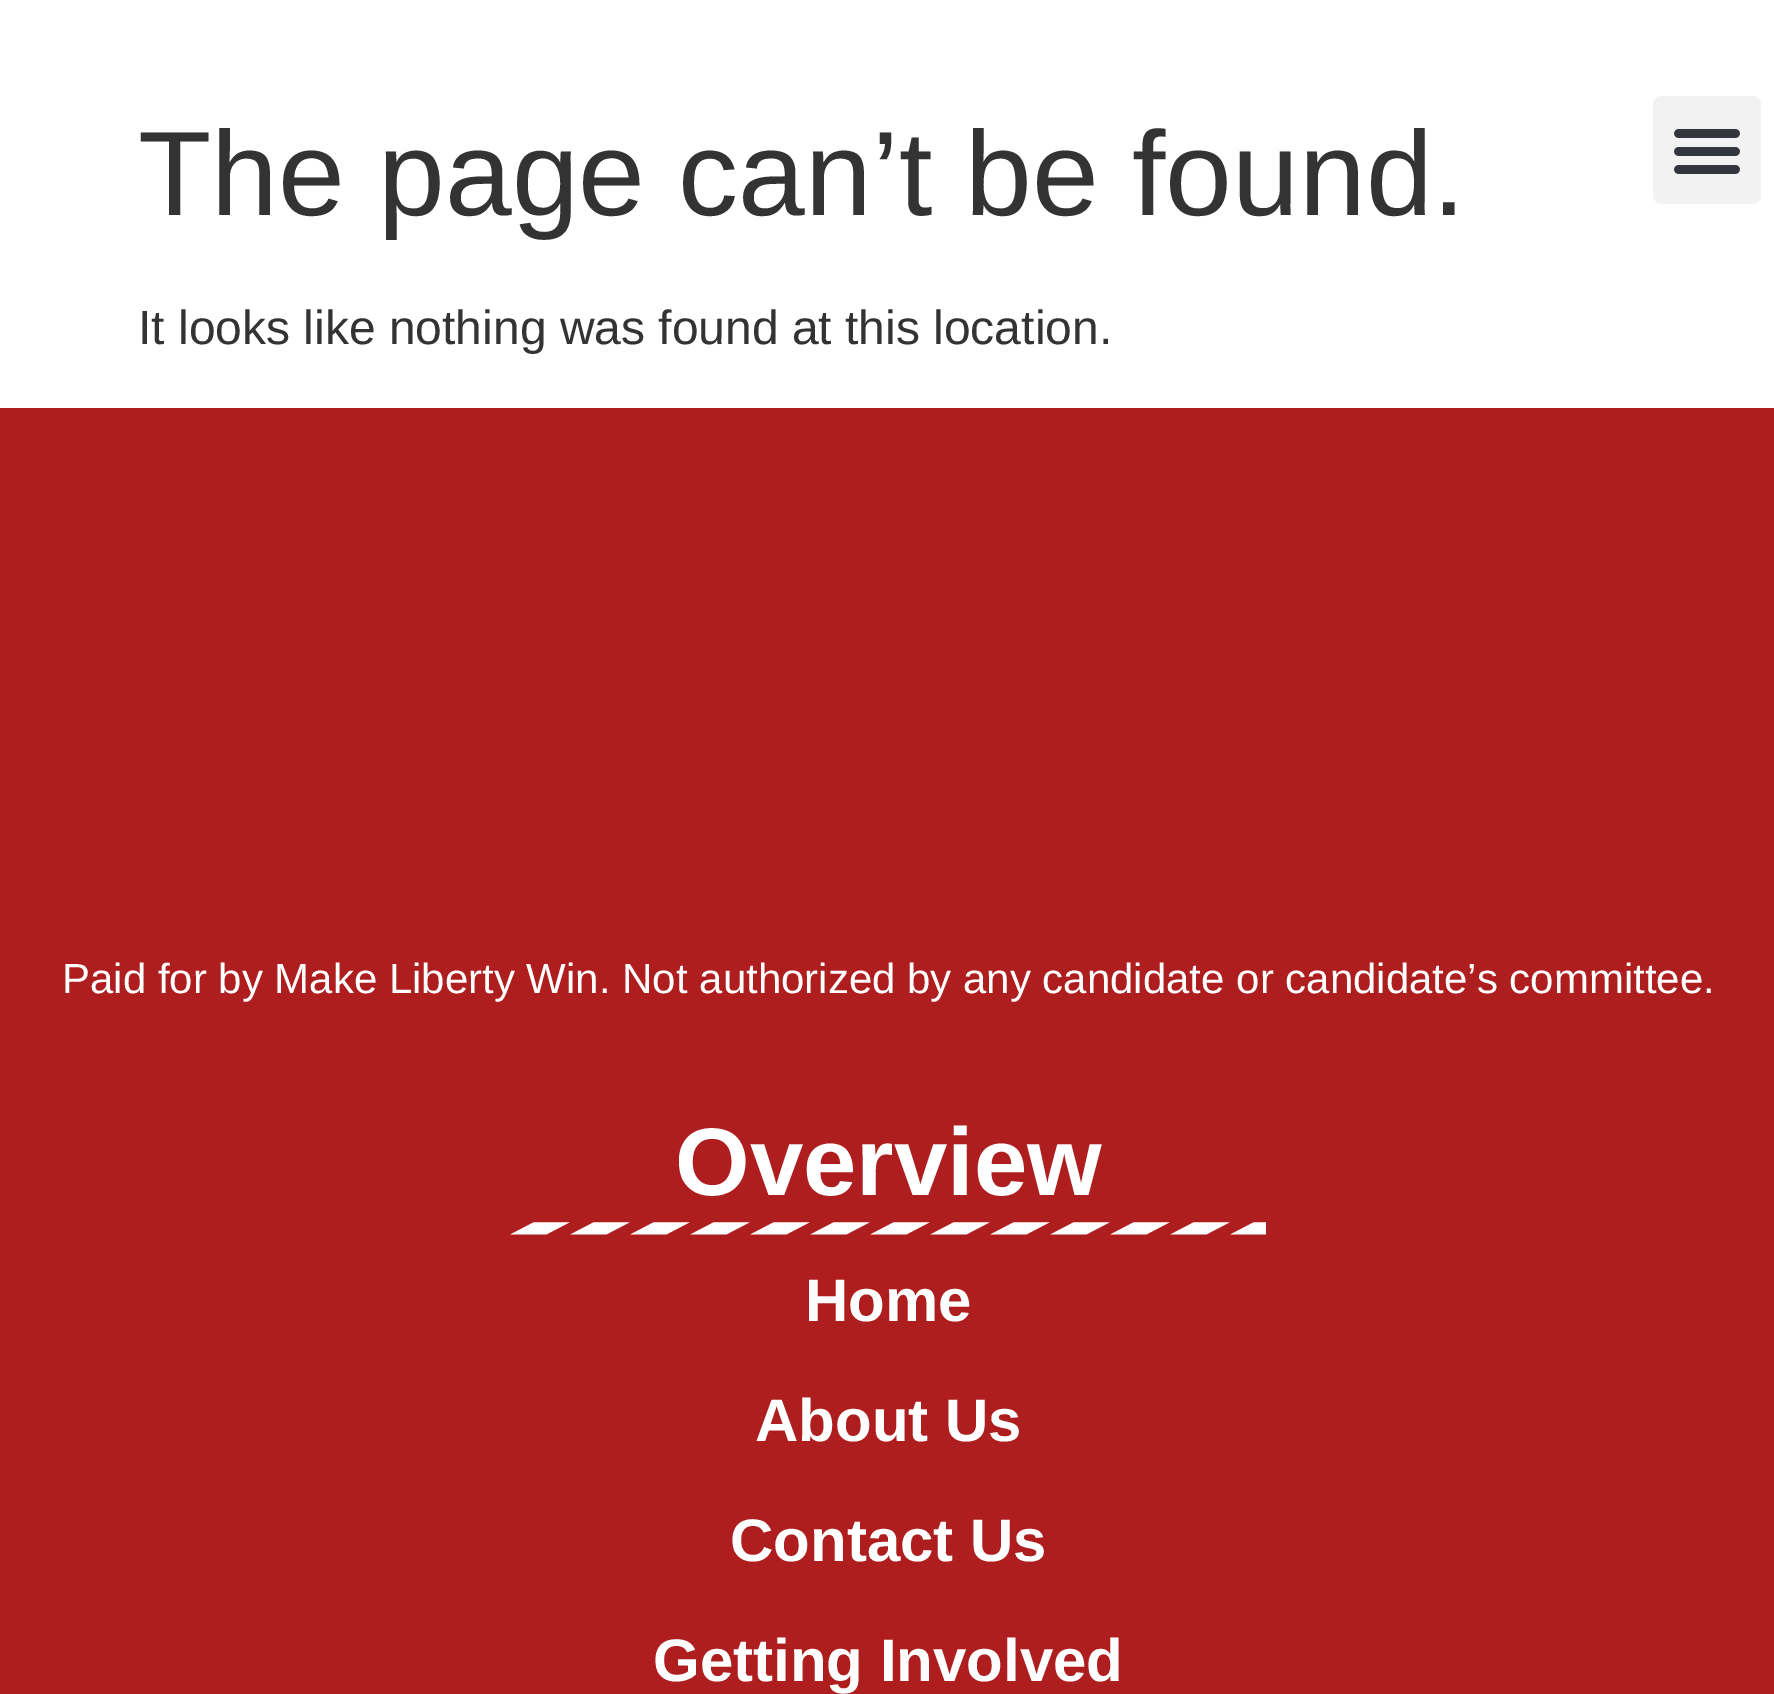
%!PS-Adobe-3.0
%%BoundingBox: 0 0 1774 1694
%%LanguageLevel: 3
%%Pages: 1
%%EndComments
%%BeginProlog
/rrect { 5 dict begin { /r /h /w /y /x } { exch def } forall
  x r add y moveto x w add y 2 copy h add r arct x w add y h add x 1 index r arct
  x y h add x y r arct x y 2 copy exch w add exch r arct closepath end } def
/drawimage { 5 dict begin { /h /w /y /x /name } { exch def } forall
  gsave x y translate w h scale
  w h 8 [w 0 0 h 0 0] name (r) file false 3 colorimage grestore end } def
%%EndProlog
%%BeginSetup
<< /PageSize [1774 1694] >> setpagedevice
%%EndSetup
%%Page: 1 1
0 1694 translate 1 -1 scale
4 setmiterlimit
1 setgray
0 0 1774 1694 rectfill
0.949 setgray
1653 96 108 108 9 rrect fill
(images/1.raw) 1674 129 66 45 drawimage
0.686 0.118 0.118 setrgbcolor
0 408 1774 1286 rectfill
(images/2.raw) 510 1222 756 13 drawimage
/LiberationSans-Regular [120 0 0 -120 0 0] selectfont
0.2 setgray
138 215 moveto (The page can’t be found.) show
/LiberationSans-Regular [48 0 0 -48 0 0] selectfont
138 344 moveto (It looks like nothing was found at this location.) show
/LiberationSans-Regular [42 0 0 -42 0 0] selectfont
1 setgray
62 993 moveto (Paid for by Make Liberty Win. Not authorized by any candidate or candidate’s committee.) show
/LiberationSans-Bold [96 0 0 -96 0 0] selectfont
675 1195 moveto (Overview) show
/LiberationSans-Bold [60 0 0 -60 0 0] selectfont
805 1321 moveto (Home) show
755 1441 moveto (About Us) show
730 1561 moveto (Contact Us) show
653 1681 moveto (Getting Involved) show
showpage
%%EOF
